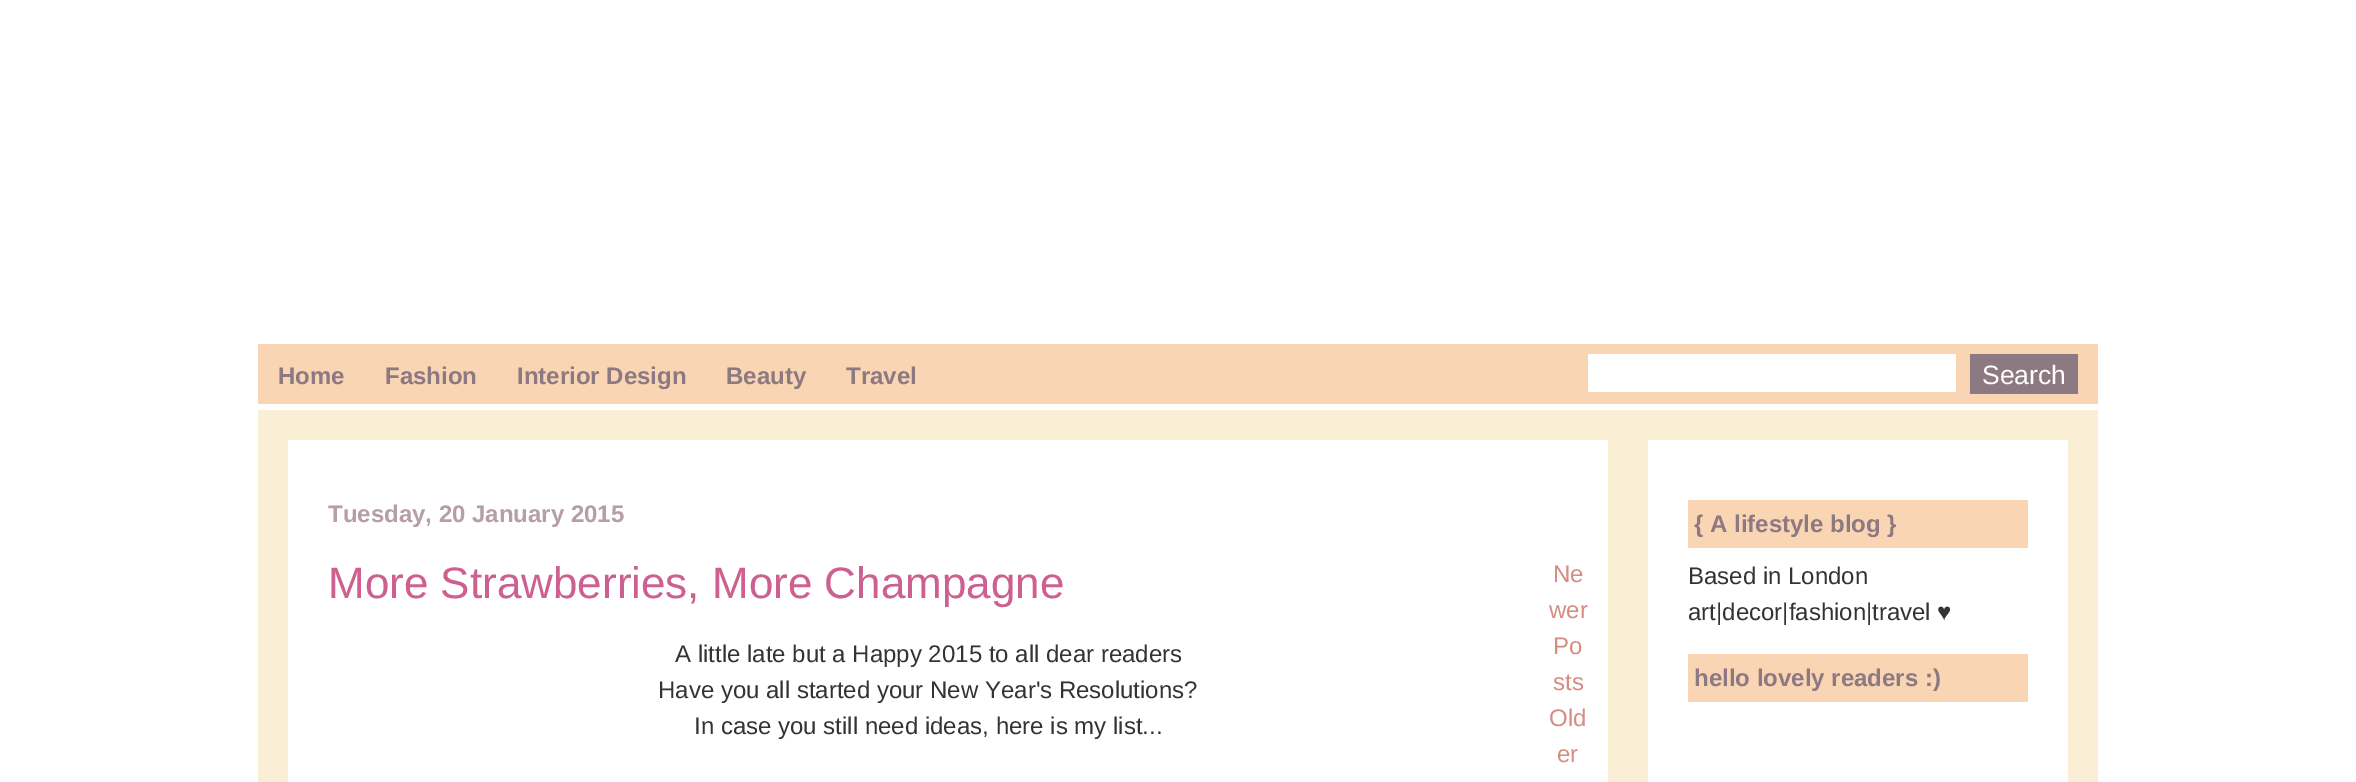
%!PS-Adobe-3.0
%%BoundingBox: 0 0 2356 782
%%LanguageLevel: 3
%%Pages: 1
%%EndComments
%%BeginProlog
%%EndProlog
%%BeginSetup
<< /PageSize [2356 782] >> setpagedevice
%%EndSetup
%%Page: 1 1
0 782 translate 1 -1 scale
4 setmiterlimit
1 setgray
0 0 2356 782 rectfill
0.98 0.835 0.702 setrgbcolor
258 344 1840 60 rectfill
1 setgray
1588 354 368 38 rectfill
0.549 0.475 0.506 setrgbcolor
1970 354 108 40 rectfill
0.98 0.937 0.831 setrgbcolor
258 410 1840 372 rectfill
1 setgray
288 440 1320 342 rectfill
1648 440 420 342 rectfill
0.98 0.835 0.702 setrgbcolor
1688 500 340 48 rectfill
1688 654 340 48 rectfill
/LiberationSans-Bold [24 0 0 -24 0 0] selectfont
0.549 0.475 0.506 setrgbcolor
278 384 moveto (Home) show
385 384 moveto (Fashion) show
517 384 moveto (Interior Design) show
726 384 moveto (Beauty) show
846 384 moveto (Travel) show
/LiberationSans-Regular [26.5 0 0 -26.5 0 0] selectfont
1 setgray
1982 384 moveto (Search) show
/LiberationSans-Bold [24 0 0 -24 0 0] selectfont
0.714 0.62 0.659 setrgbcolor
328 522 moveto (Tuesday, 20 January 2015) show
/LiberationSans-Regular [44 0 0 -44 0 0] selectfont
0.804 0.376 0.569 setrgbcolor
328 598 moveto (More Strawberries, More Champagne) show
/LiberationSans-Regular [24 0 0 -24 0 0] selectfont
0.2 setgray
675 662 moveto (A little late but a Happy 2015 to all dear readers) show
658 698 moveto (Have you all started your New Year's Resolutions?) show
694 734 moveto (In case you still need ideas, here is my list...) show
0.835 0.549 0.506 setrgbcolor
1553 582 moveto (Ne) show
1549 618 moveto (wer) show
1553 654 moveto (Po) show
1553 690 moveto (sts) show
1549 726 moveto (Old) show
1557 762 moveto (er) show
/LiberationSans-Bold [24 0 0 -24 0 0] selectfont
0.549 0.475 0.506 setrgbcolor
1694 532 moveto ({ A lifestyle blog }) show
/LiberationSans-Regular [24 0 0 -24 0 0] selectfont
0.2 setgray
1688 584 moveto (Based in London) show
1688 620 moveto (art|decor|fashion|travel ♥) show
/LiberationSans-Bold [24 0 0 -24 0 0] selectfont
0.549 0.475 0.506 setrgbcolor
1694 686 moveto (hello lovely readers :\)) show
showpage
%%EOF
